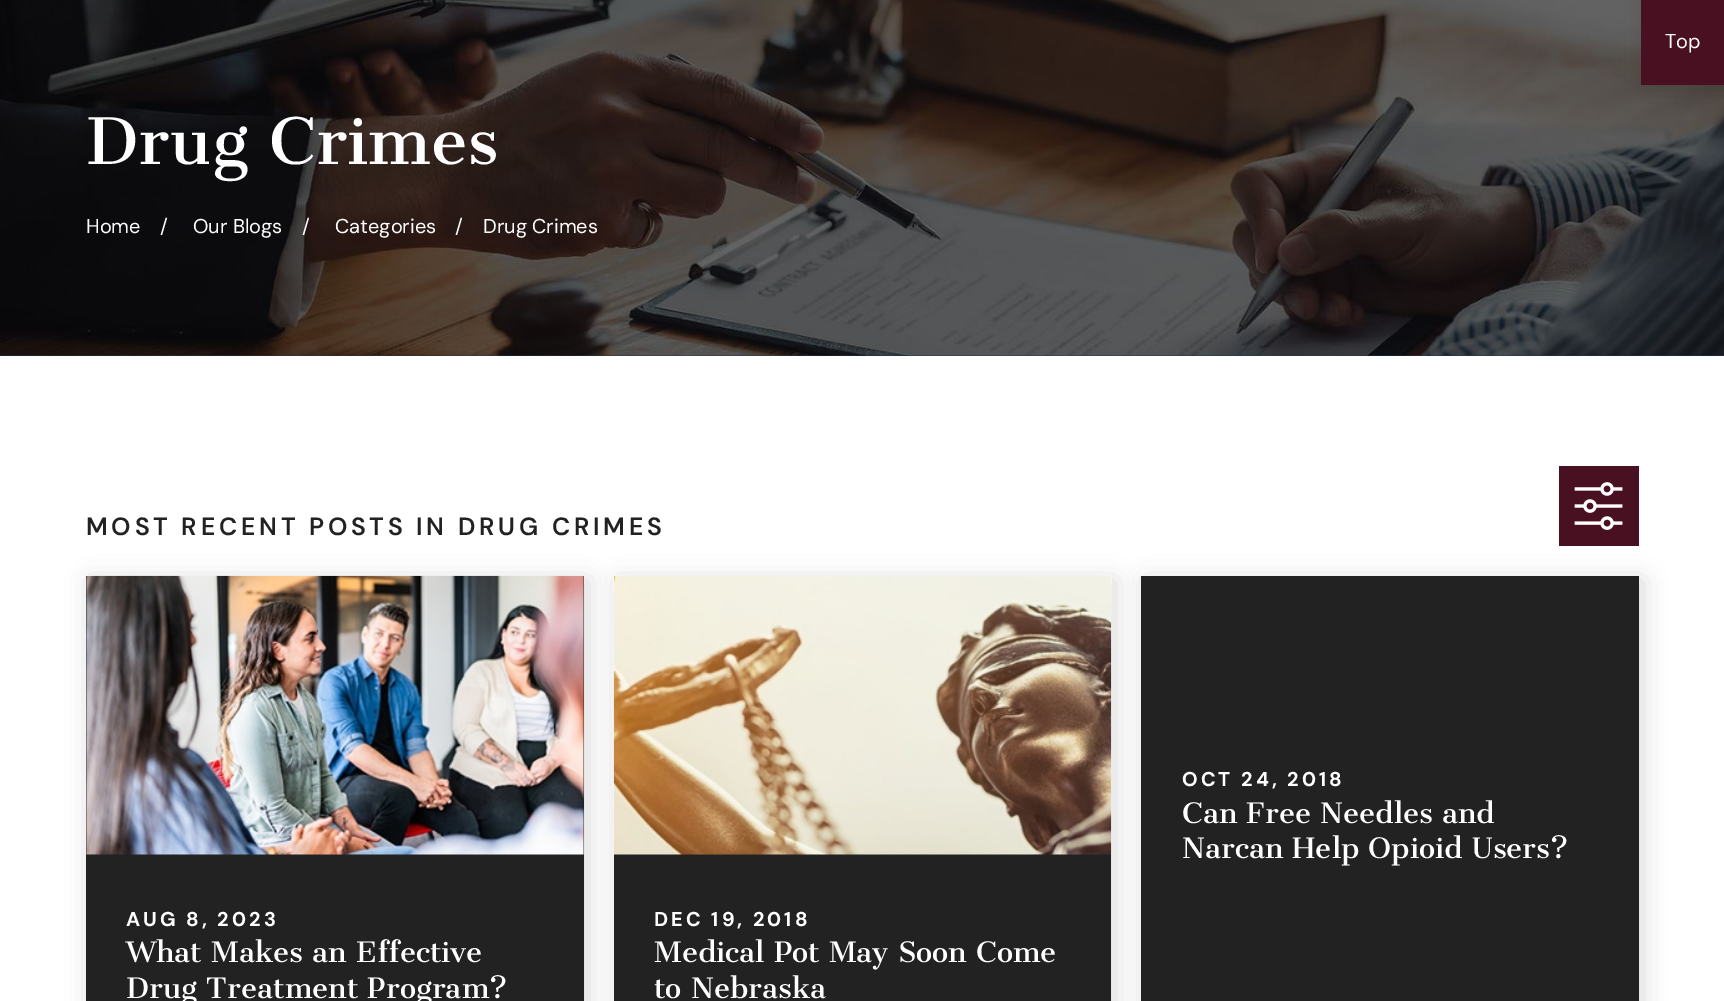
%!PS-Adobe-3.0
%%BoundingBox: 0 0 1724 1001
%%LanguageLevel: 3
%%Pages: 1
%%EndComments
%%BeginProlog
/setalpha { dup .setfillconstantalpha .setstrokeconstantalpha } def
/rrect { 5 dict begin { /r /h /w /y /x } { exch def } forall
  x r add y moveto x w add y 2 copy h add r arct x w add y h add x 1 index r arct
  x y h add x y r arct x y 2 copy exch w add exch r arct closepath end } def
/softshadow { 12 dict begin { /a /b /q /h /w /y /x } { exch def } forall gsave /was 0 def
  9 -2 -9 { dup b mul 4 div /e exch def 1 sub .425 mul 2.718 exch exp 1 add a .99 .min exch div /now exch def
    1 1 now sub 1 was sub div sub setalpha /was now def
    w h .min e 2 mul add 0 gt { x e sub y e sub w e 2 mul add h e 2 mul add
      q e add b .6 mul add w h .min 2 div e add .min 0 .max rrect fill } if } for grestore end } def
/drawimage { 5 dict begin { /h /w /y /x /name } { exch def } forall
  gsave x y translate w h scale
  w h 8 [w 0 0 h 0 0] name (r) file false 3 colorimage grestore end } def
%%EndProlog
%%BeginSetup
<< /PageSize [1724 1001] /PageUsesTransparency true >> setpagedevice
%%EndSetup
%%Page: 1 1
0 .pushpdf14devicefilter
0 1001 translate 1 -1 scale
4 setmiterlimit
1 setgray
0 0 1724 1001 rectfill
0.106 0.208 0.337 setrgbcolor
0 355 1724 1 rectfill
(images/1.raw) 0 0 1724 356 drawimage
0 setgray
1645 4 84 85 0 12 0.15 softshadow
0.286 0.063 0.129 setrgbcolor
1641 0 83 85 rectfill
0 setgray
90 580 498 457 0 12 0.15 softshadow
0.133 setgray
86 576 498 425 rectfill
(images/3.raw) 86 575 498 280 drawimage
0 setgray
618 580 497 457 0 12 0.15 softshadow
0.133 setgray
614 854 497 147 rectfill
(images/4.raw) 613 575 499 280 drawimage
0 setgray
1145 580 498 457 0 12 0.15 softshadow
0.286 0.063 0.129 setrgbcolor
1559 466 80 80 rectfill
(images/2.raw) 1574 482 49 48 drawimage
0.133 setgray
1141 576 498 425 rectfill
/DMSans-Regular [20 0 0 -20 0 0] selectfont
1 setgray
1665 48 moveto (Top) show
/CantataOne-Regular [62.75 0 0 -62.75 0 0] selectfont
86 164 moveto (Drug Crimes) show
/DMSans-Regular [20 0 0 -20 0 0] selectfont
86 233 moveto (Home) show
160 233 moveto (/) show
193 233 moveto (Our Blogs) show
302 233 moveto (/) show
335 233 moveto (Categories) show
455 233 moveto (/) show
483 233 moveto (Drug Crimes) show
/DMSans-SemiBold [24.9 0 0 -24.9 0 0] selectfont
0.133 setgray
86 535 moveto 3.75 0 (MOST RECENT POSTS IN DRUG CRIMES) ashow
/DMSans-Bold [20 0 0 -20 0 0] selectfont
1 setgray
1182 786 moveto 3 0 (OCT 24, 2018) ashow
/CantataOne-Regular [27.6 0 0 -27.6 0 0] selectfont
1182 823 moveto (Can Free Needles and) show
1182 858 moveto (Narcan Help Opioid Users?) show
/DMSans-Bold [20 0 0 -20 0 0] selectfont
126 926 moveto 3 0 (AUG 8, 2023) ashow
/CantataOne-Regular [27.6 0 0 -27.6 0 0] selectfont
126 962 moveto (What Makes an Effective) show
126 998 moveto (Drug Treatment Program?) show
/DMSans-Bold [20 0 0 -20 0 0] selectfont
654 926 moveto 3 0 (DEC 19, 2018) ashow
/CantataOne-Regular [27.6 0 0 -27.6 0 0] selectfont
654 962 moveto (Medical Pot May Soon Come) show
654 998 moveto (to Nebraska) show
.poppdf14devicefilter showpage
%%EOF
